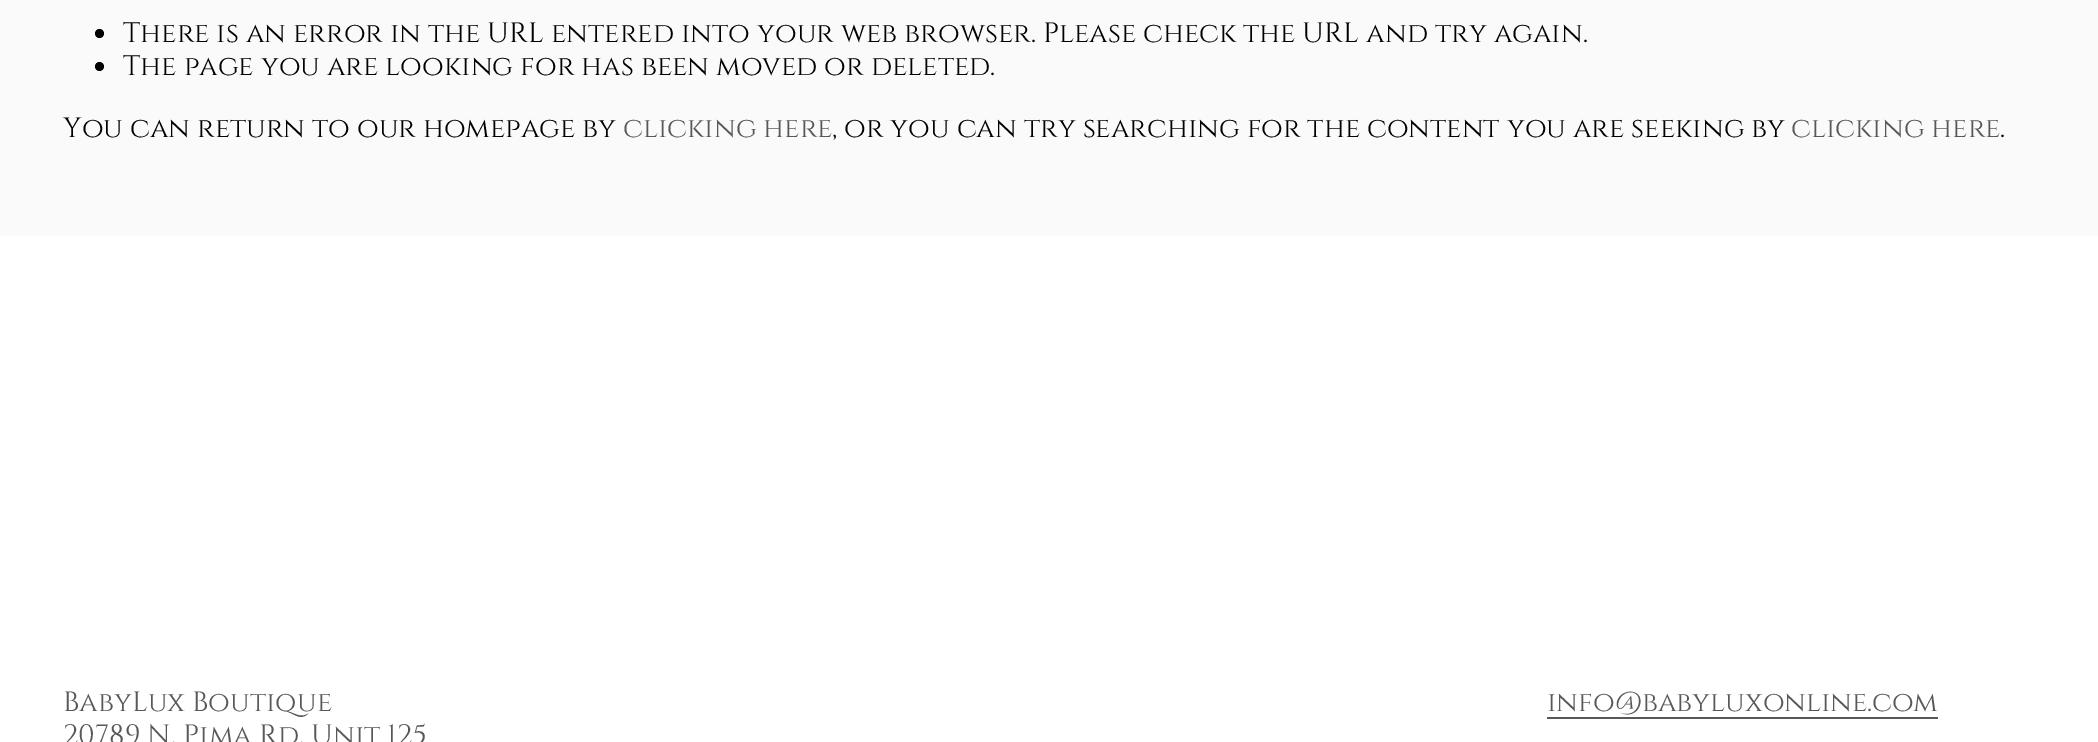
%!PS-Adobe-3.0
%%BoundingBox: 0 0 2098 742
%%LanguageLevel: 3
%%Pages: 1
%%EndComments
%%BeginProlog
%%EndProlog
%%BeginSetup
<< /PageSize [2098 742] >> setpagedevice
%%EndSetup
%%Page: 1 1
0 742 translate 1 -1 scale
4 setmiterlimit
0.98 setgray
0 0 2098 742 rectfill
0 setgray
newpath 99.5 33.5 4.5 0 360 arc closepath fill
newpath 99.5 66.5 4.5 0 360 arc closepath fill
1 setgray
0 236 2098 506 rectfill
0.345 0.345 0.357 setrgbcolor
1547 717 391 2 rectfill
/Cinzel-Regular [28.02 0 0 -28.02 0 0] selectfont
0 setgray
123 42 moveto (There is an error in the URL entered into your web browser. Please check the URL and try again.) show
123 75 moveto (The page you are looking for has been moved or deleted.) show
63 137 moveto (You can return to our homepage by) show
0.345 0.345 0.357 setrgbcolor
623 137 moveto (clicking here) show
0 setgray
832 137 moveto (, or you can try searching for the content you are seeking by) show
0.345 0.345 0.357 setrgbcolor
1791 137 moveto (clicking here) show
0 setgray
2000 137 moveto (.) show
0.345 0.345 0.357 setrgbcolor
63 711 moveto (BabyLux Boutique) show
63 744 moveto (20789 N. Pima Rd. Unit 125) show
1547 711 moveto (info@babyluxonline) show
1867 711 moveto (.com) show
showpage
%%EOF
